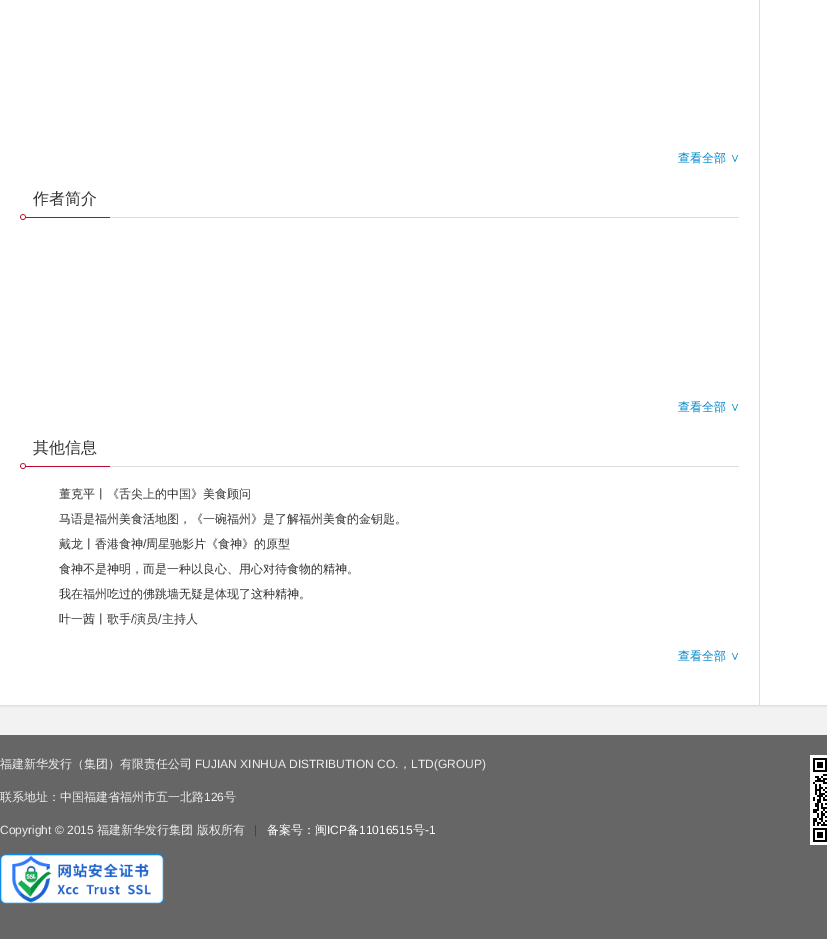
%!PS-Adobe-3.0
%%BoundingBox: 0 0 827 939
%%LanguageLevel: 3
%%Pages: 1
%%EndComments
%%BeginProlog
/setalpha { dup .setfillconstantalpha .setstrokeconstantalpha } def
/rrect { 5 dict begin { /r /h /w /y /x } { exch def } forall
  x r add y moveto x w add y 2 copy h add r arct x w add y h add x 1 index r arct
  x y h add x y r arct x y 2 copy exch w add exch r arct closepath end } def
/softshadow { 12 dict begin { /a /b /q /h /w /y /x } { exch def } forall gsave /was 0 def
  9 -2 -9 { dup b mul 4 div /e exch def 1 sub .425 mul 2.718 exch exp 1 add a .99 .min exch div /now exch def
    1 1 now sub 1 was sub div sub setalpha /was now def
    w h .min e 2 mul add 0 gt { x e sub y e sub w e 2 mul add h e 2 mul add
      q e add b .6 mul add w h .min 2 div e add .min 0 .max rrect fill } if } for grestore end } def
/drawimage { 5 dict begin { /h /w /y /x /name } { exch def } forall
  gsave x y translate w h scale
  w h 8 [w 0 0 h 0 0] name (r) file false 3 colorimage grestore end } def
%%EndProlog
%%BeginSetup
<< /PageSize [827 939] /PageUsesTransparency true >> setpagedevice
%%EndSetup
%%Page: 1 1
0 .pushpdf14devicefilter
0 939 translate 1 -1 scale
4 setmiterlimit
0.949 setgray
0 0 827 939 rectfill
0 setgray
0 -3 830 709 0 1 0.1 softshadow
1 setgray
0 0 827 705 rectfill
0.867 setgray
759 0 1 705 rectfill
110 217 629 1 rectfill
0.737 0.031 0.169 setrgbcolor
20 217 90 1 rectfill
(images/1.raw) 20 214 6 6 drawimage
0.867 setgray
110 466 629 1 rectfill
0.737 0.031 0.169 setrgbcolor
20 466 90 1 rectfill
(images/1.raw) 20 463 6 6 drawimage
0.4 setgray
0 735 827 204 rectfill
(images/2.raw) 0 854 164 50 drawimage
(images/3.raw) 810 755 17 90 drawimage
/WenQuanYiZenHei-Medium [12 0 0 -12 0 0] selectfont
0 0.533 0.8 setrgbcolor
678 162 moveto (查看全部 ∨) show
/WenQuanYiZenHei-Medium [16 0 0 -16 0 0] selectfont
0.2 setgray
33 204 moveto (作者简介) show
/WenQuanYiZenHei-Medium [12 0 0 -12 0 0] selectfont
0 0.533 0.8 setrgbcolor
678 411 moveto (查看全部 ∨) show
/WenQuanYiZenHei-Medium [16 0 0 -16 0 0] selectfont
0.2 setgray
33 453 moveto (其他信息) show
/WenQuanYiZenHei-Medium [12 0 0 -12 0 0] selectfont
59 498 moveto (董克平丨《舌尖上的中国》美食顾问) show
59 523 moveto (马语是福州美食活地图，《一碗福州》是了解福州美食的金钥匙。) show
59 548 moveto (戴龙丨香港食神) show
/LiberationSans-Regular [12 0 0 -12 0 0] selectfont
143 548 moveto (/) show
/WenQuanYiZenHei-Medium [12 0 0 -12 0 0] selectfont
146 548 moveto (周星驰影片《食神》的原型) show
59 573 moveto (食神不是神明，而是一种以良心、用心对待食物的精神。) show
59 598 moveto (我在福州吃过的佛跳墙无疑是体现了这种精神。) show
59 623 moveto (叶一茜丨歌手) show
/LiberationSans-Regular [12 0 0 -12 0 0] selectfont
131 623 moveto (/) show
/WenQuanYiZenHei-Medium [12 0 0 -12 0 0] selectfont
134 623 moveto (演员) show
/LiberationSans-Regular [12 0 0 -12 0 0] selectfont
158 623 moveto (/) show
/WenQuanYiZenHei-Medium [12 0 0 -12 0 0] selectfont
162 623 moveto (主持人) show
0 0.533 0.8 setrgbcolor
678 660 moveto (查看全部 ∨) show
0.933 setgray
0 768 moveto (福建新华发行（集团）有限责任公司) show
/LiberationSans-Regular [12 0 0 -12 0 0] selectfont
195 768 moveto (FUJIAN XINHUA DISTRIBUTION CO.) show
/WenQuanYiZenHei-Medium [12 0 0 -12 0 0] selectfont
399 768 moveto (，) show
/LiberationSans-Regular [12 0 0 -12 0 0] selectfont
411 768 moveto (LTD\(GROUP\)) show
/WenQuanYiZenHei-Medium [12 0 0 -12 0 0] selectfont
0 801 moveto (联系地址：中国福建省福州市五一北路) show
/LiberationSans-Regular [12 0 0 -12 0 0] selectfont
204 801 moveto (126) show
/WenQuanYiZenHei-Medium [12 0 0 -12 0 0] selectfont
224 801 moveto (号) show
/LiberationSans-Regular [12 0 0 -12 0 0] selectfont
0 834 moveto (Copyright © 2015) show
/WenQuanYiZenHei-Medium [12 0 0 -12 0 0] selectfont
97 834 moveto (福建新华发行集团 版权所有) show
/LiberationSans-Regular [12 0 0 -12 0 0] selectfont
0.267 setgray
254 834 moveto (|) show
/WenQuanYiZenHei-Medium [12 0 0 -12 0 0] selectfont
1 setgray
267 834 moveto (备案号：闽) show
/LiberationSans-Regular [12 0 0 -12 0 0] selectfont
327 834 moveto (ICP) show
/WenQuanYiZenHei-Medium [12 0 0 -12 0 0] selectfont
347 834 moveto (备) show
/LiberationSans-Regular [12 0 0 -12 0 0] selectfont
359 834 moveto (11016515) show
/WenQuanYiZenHei-Medium [12 0 0 -12 0 0] selectfont
413 834 moveto (号) show
/LiberationSans-Regular [12 0 0 -12 0 0] selectfont
425 834 moveto (-1) show
.poppdf14devicefilter showpage
%%EOF
